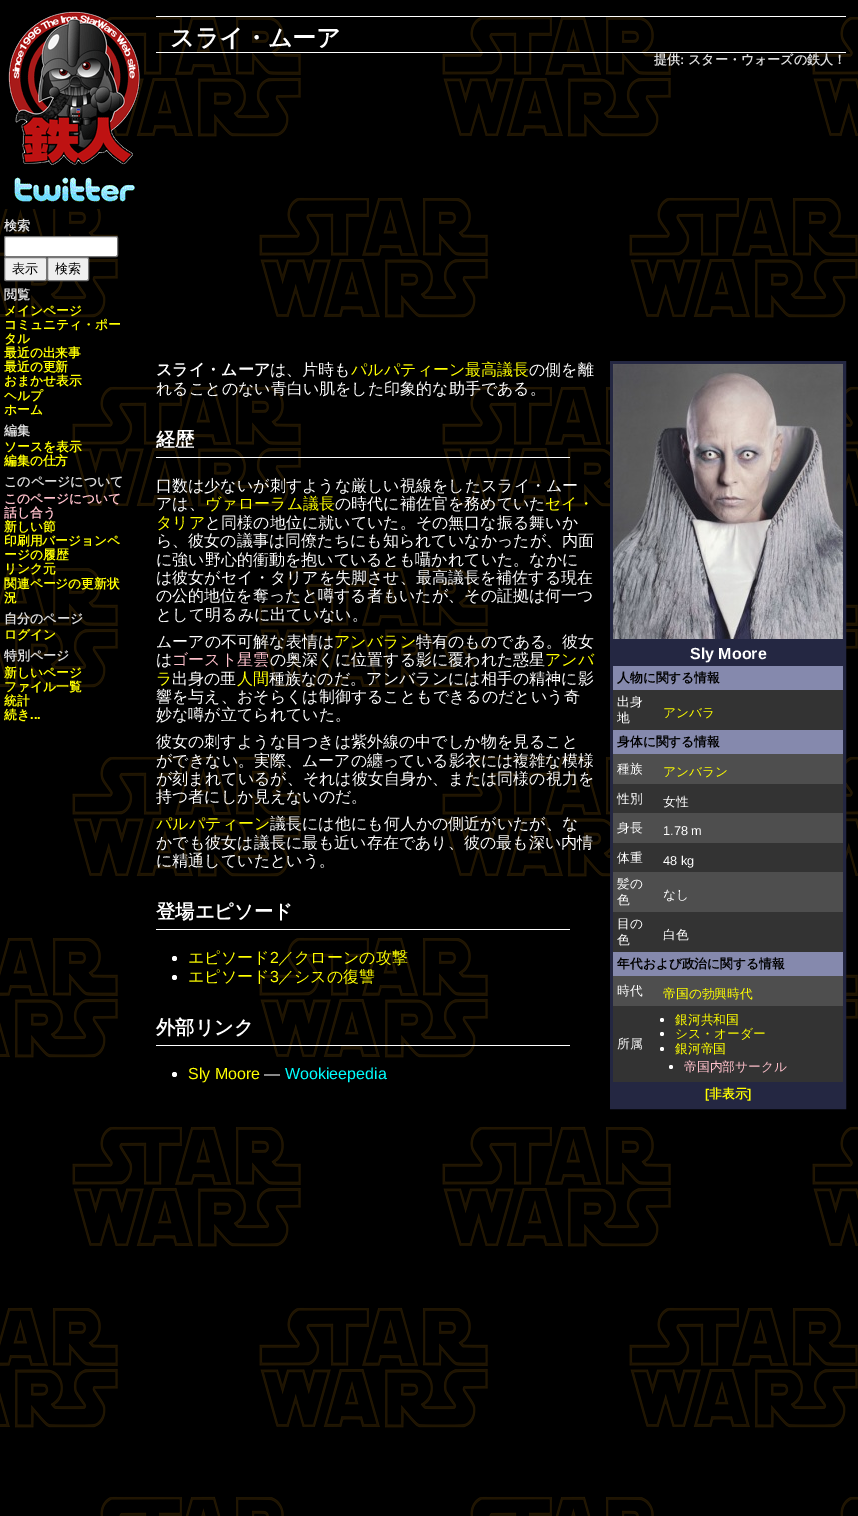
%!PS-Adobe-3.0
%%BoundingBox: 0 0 858 1516
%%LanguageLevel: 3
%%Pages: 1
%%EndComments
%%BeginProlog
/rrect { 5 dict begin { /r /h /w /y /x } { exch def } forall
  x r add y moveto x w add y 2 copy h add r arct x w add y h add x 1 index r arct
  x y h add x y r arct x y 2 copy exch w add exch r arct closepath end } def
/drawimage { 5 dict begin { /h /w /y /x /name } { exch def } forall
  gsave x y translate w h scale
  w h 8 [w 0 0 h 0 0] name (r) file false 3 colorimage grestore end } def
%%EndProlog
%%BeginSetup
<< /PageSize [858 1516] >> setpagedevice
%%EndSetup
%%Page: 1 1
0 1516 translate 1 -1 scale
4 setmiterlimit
0 setgray
0 0 858 1516 rectfill
(images/1.raw) 0 17 858 1499 drawimage
(images/2.raw) 8 11 132 154 drawimage
(images/3.raw) 5 177 130 32 drawimage
1 setgray
4.5 236.5 113 20 1.5 rrect gsave fill grestore
0.463 setgray
stroke
0.937 setgray
4.5 257.5 42 23 1.5 rrect gsave fill grestore
0.463 setgray
stroke
0.937 setgray
47.5 257.5 41 23 1.5 rrect gsave fill grestore
0.463 setgray
stroke
1 setgray
156 16 690 1 rectfill
156 52 690 1 rectfill
156 457 414 1 rectfill
0.141 0.153 0.259 setrgbcolor
3 setlinewidth
611.5 362.5 233 745 rectstroke
0.2 setgray
613 690 230 392 rectfill
0.141 0.153 0.259 setrgbcolor
613 639 230 27 rectfill
(images/4.raw) 613 364 230 275 drawimage
0.522 0.537 0.678 setrgbcolor
613 666 230 24 rectfill
613 730 230 24 rectfill
0.306 setgray
613 754 230 30 rectfill
613 813 230 30 rectfill
613 872 230 40 rectfill
0.522 0.537 0.678 setrgbcolor
613 952 230 24 rectfill
0.306 setgray
613 976 230 30 rectfill
1 setgray
newpath 662 1020 2 0 360 arc closepath fill
newpath 662 1034 2 0 360 arc closepath fill
newpath 662 1049 2 0 360 arc closepath fill
newpath 671 1067 2 0 360 arc closepath fill
0.141 0.153 0.259 setrgbcolor
613 1082 230 24 rectfill
1 setgray
156 929 414 1 rectfill
newpath 174.5 958.5 2.5 0 360 arc closepath fill
newpath 174.5 977.5 2.5 0 360 arc closepath fill
156 1045 414 1 rectfill
newpath 174.5 1074.5 2.5 0 360 arc closepath fill
/WenQuanYiZenHei-Bold [13 0 0 -13 0 0] selectfont
0.867 setgray
4 230 moveto (検索) show
/WenQuanYiZenHei-Medium [13 0 0 -13 0 0] selectfont
0 setgray
12 273 moveto (表示) show
55 273 moveto (検索) show
/WenQuanYiZenHei-Bold [13 0 0 -13 0 0] selectfont
0.867 setgray
4 299 moveto (閲覧) show
/WenQuanYiZenHei-Bold [12.75 0 0 -12.75 0 0] selectfont
1 1 0 setrgbcolor
4 315 moveto (メインページ) show
4 329 moveto (コミュニティ・ポー) show
4 343 moveto (タル) show
4 357 moveto (最近の出来事) show
4 371 moveto (最近の更新) show
4 385 moveto (おまかせ表示) show
4 400 moveto (ヘルプ) show
4 414 moveto (ホーム) show
/WenQuanYiZenHei-Bold [13 0 0 -13 0 0] selectfont
0.867 setgray
4 435 moveto (編集) show
/WenQuanYiZenHei-Bold [12.75 0 0 -12.75 0 0] selectfont
1 1 0 setrgbcolor
4 451 moveto (ソースを表示) show
4 465 moveto (編集の仕方) show
/WenQuanYiZenHei-Bold [13 0 0 -13 0 0] selectfont
0.867 setgray
4 486 moveto (このページについて) show
/WenQuanYiZenHei-Bold [12.75 0 0 -12.75 0 0] selectfont
1 0.753 0.796 setrgbcolor
4 503 moveto (このページについて) show
4 517 moveto (話し合う) show
1 1 0 setrgbcolor
4 531 moveto (新しい節) show
4 545 moveto (印刷用バージョンペ) show
4 559 moveto (ージの履歴) show
4 573 moveto (リンク元) show
4 588 moveto (関連ページの更新状) show
4 602 moveto (況) show
/WenQuanYiZenHei-Bold [13 0 0 -13 0 0] selectfont
0.867 setgray
4 623 moveto (自分のページ) show
/WenQuanYiZenHei-Bold [12.75 0 0 -12.75 0 0] selectfont
1 1 0 setrgbcolor
4 639 moveto (ログイン) show
/WenQuanYiZenHei-Bold [13 0 0 -13 0 0] selectfont
0.867 setgray
4 660 moveto (特別ページ) show
/WenQuanYiZenHei-Bold [12.75 0 0 -12.75 0 0] selectfont
1 1 0 setrgbcolor
4 677 moveto (新しいページ) show
4 691 moveto (ファイル一覧) show
4 705 moveto (統計) show
4 719 moveto (続き) show
/LiberationSans-Bold [12.75 0 0 -12.75 0 0] selectfont
30 719 moveto (...) show
/WenQuanYiZenHei-Bold [24 0 0 -24 0 0] selectfont
1 setgray
170 46 moveto (スライ・ムーア) show
/WenQuanYiZenHei-Bold [13 0 0 -13 0 0] selectfont
0.867 setgray
654 64 moveto (提供) show
/LiberationSans-Bold [13 0 0 -13 0 0] selectfont
680 64 moveto (:) show
/WenQuanYiZenHei-Bold [13 0 0 -13 0 0] selectfont
688 64 moveto (スター・ウォーズの鉄人！) show
/WenQuanYiZenHei-Bold [16 0 0 -16 0 0] selectfont
1 setgray
156 375 moveto (スライ・ムーア) show
/WenQuanYiZenHei-Medium [16 0 0 -16 0 0] selectfont
270 375 moveto (は、片時も) show
1 1 0 setrgbcolor
351 375 moveto (パルパティーン最高議長) show
1 setgray
529 375 moveto (の側を離) show
156 394 moveto (れることのない青白い肌をした印象的な助手である。) show
/WenQuanYiZenHei-Bold [19.25 0 0 -19.25 0 0] selectfont
156 446 moveto (経歴) show
/WenQuanYiZenHei-Medium [16 0 0 -16 0 0] selectfont
156 491 moveto (口数は少ないが刺すような厳しい視線をしたスライ・ムー) show
156 509 moveto (アは、) show
1 1 0 setrgbcolor
205 509 moveto (ヴァローラム議長) show
1 setgray
335 509 moveto (の時代に補佐官を務めていた) show
1 1 0 setrgbcolor
545 509 moveto (セイ・) show
156 528 moveto (タリア) show
1 setgray
205 528 moveto (と同様の地位に就いていた。その無口な振る舞いか) show
156 546 moveto (ら、彼女の議事は同僚たちにも知られていなかったが、内面) show
156 565 moveto (に強い野心的衝動を抱いているとも囁かれていた。なかに) show
156 583 moveto (は彼女がセイ・タリアを失脚させ、最高議長を補佐する現在) show
156 601 moveto (の公的地位を奪ったと噂する者もいたが、その証拠は何一つ) show
156 620 moveto (として明るみに出ていない。) show
156 647 moveto (ムーアの不可解な表情は) show
1 1 0 setrgbcolor
334 647 moveto (アンバラン) show
1 setgray
416 647 moveto (特有のものである。彼女) show
156 665 moveto (は) show
1 0.753 0.796 setrgbcolor
172 665 moveto (ゴースト星雲) show
1 setgray
270 665 moveto (の奥深くに位置する影に覆われた惑星) show
1 1 0 setrgbcolor
545 665 moveto (アンバ) show
156 684 moveto (ラ) show
1 setgray
172 684 moveto (出身の亜) show
1 1 0 setrgbcolor
237 684 moveto (人間) show
1 setgray
269 684 moveto (種族なのだ。アンバランには相手の精神に影) show
156 702 moveto (響を与え、おそらくは制御することもできるのだという奇) show
156 720 moveto (妙な噂が立てられていた。) show
/LiberationSans-Bold [16 0 0 -16 0 0] selectfont
690 659 moveto (Sly Moore) show
/WenQuanYiZenHei-Bold [12.75 0 0 -12.75 0 0] selectfont
0 setgray
617 682 moveto (人物に関する情報) show
/WenQuanYiZenHei-Medium [12.75 0 0 -12.75 0 0] selectfont
1 setgray
617 706 moveto (出身) show
617 722 moveto (地) show
1 1 0 setrgbcolor
663 717 moveto (アンバラ) show
/WenQuanYiZenHei-Bold [12.75 0 0 -12.75 0 0] selectfont
0 setgray
617 746 moveto (身体に関する情報) show
/WenQuanYiZenHei-Medium [12.75 0 0 -12.75 0 0] selectfont
1 setgray
617 773 moveto (種族) show
1 1 0 setrgbcolor
663 776 moveto (アンバラン) show
1 setgray
617 803 moveto (性別) show
663 806 moveto (女性) show
617 832 moveto (身長) show
/LiberationSans-Regular [12.75 0 0 -12.75 0 0] selectfont
663 835 moveto (1.78 m) show
/WenQuanYiZenHei-Medium [12.75 0 0 -12.75 0 0] selectfont
617 862 moveto (体重) show
/LiberationSans-Regular [12.75 0 0 -12.75 0 0] selectfont
663 865 moveto (48 kg) show
/WenQuanYiZenHei-Medium [12.75 0 0 -12.75 0 0] selectfont
617 888 moveto (髪の) show
617 904 moveto (色) show
663 899 moveto (なし) show
617 928 moveto (目の) show
617 944 moveto (色) show
663 939 moveto (白色) show
/WenQuanYiZenHei-Bold [12.75 0 0 -12.75 0 0] selectfont
0 setgray
617 968 moveto (年代および政治に関する情報) show
/WenQuanYiZenHei-Medium [12.75 0 0 -12.75 0 0] selectfont
1 setgray
617 995 moveto (時代) show
1 1 0 setrgbcolor
663 998 moveto (帝国の勃興時代) show
1 setgray
617 1048 moveto (所属) show
1 1 0 setrgbcolor
675 1024 moveto (銀河共和国) show
675 1038 moveto (シス・オーダー) show
675 1053 moveto (銀河帝国) show
1 0.753 0.796 setrgbcolor
684 1071 moveto (帝国内部サークル) show
/LiberationSans-Bold [12.75 0 0 -12.75 0 0] selectfont
1 1 0 setrgbcolor
705 1098 moveto ([) show
/WenQuanYiZenHei-Bold [12.75 0 0 -12.75 0 0] selectfont
709 1098 moveto (非表示) show
/LiberationSans-Bold [12.75 0 0 -12.75 0 0] selectfont
747 1098 moveto (]) show
/WenQuanYiZenHei-Medium [16 0 0 -16 0 0] selectfont
1 setgray
156 747 moveto (彼女の刺すような目つきは紫外線の中でしか物を見ること) show
156 766 moveto (ができない。実際、ムーアの纏っている影衣には複雑な模様) show
156 784 moveto (が刻まれているが、それは彼女自身か、または同様の視力を) show
156 802 moveto (持つ者にしか見えないのだ。) show
1 1 0 setrgbcolor
156 829 moveto (パルパティーン) show
1 setgray
270 829 moveto (議長には他にも何人かの側近がいたが、な) show
156 848 moveto (かでも彼女は議長に最も近い存在であり、彼の最も深い内情) show
156 866 moveto (に精通していたという。) show
/WenQuanYiZenHei-Bold [19.25 0 0 -19.25 0 0] selectfont
156 918 moveto (登場エピソード) show
/WenQuanYiZenHei-Medium [16 0 0 -16 0 0] selectfont
1 1 0 setrgbcolor
188 963 moveto (エピソード) show
/LiberationSans-Regular [16 0 0 -16 0 0] selectfont
270 963 moveto (2) show
/WenQuanYiZenHei-Medium [16 0 0 -16 0 0] selectfont
278 963 moveto (／クローンの攻撃) show
188 982 moveto (エピソード) show
/LiberationSans-Regular [16 0 0 -16 0 0] selectfont
270 982 moveto (3) show
/WenQuanYiZenHei-Medium [16 0 0 -16 0 0] selectfont
278 982 moveto (／シスの復讐) show
/WenQuanYiZenHei-Bold [19.25 0 0 -19.25 0 0] selectfont
1 setgray
156 1034 moveto (外部リンク) show
/LiberationSans-Regular [16 0 0 -16 0 0] selectfont
1 1 0 setrgbcolor
188 1079 moveto (Sly Moore) show
1 setgray
264 1079 moveto (—) show
0 1 1 setrgbcolor
285 1079 moveto (Wookieepedia) show
showpage
%%EOF
